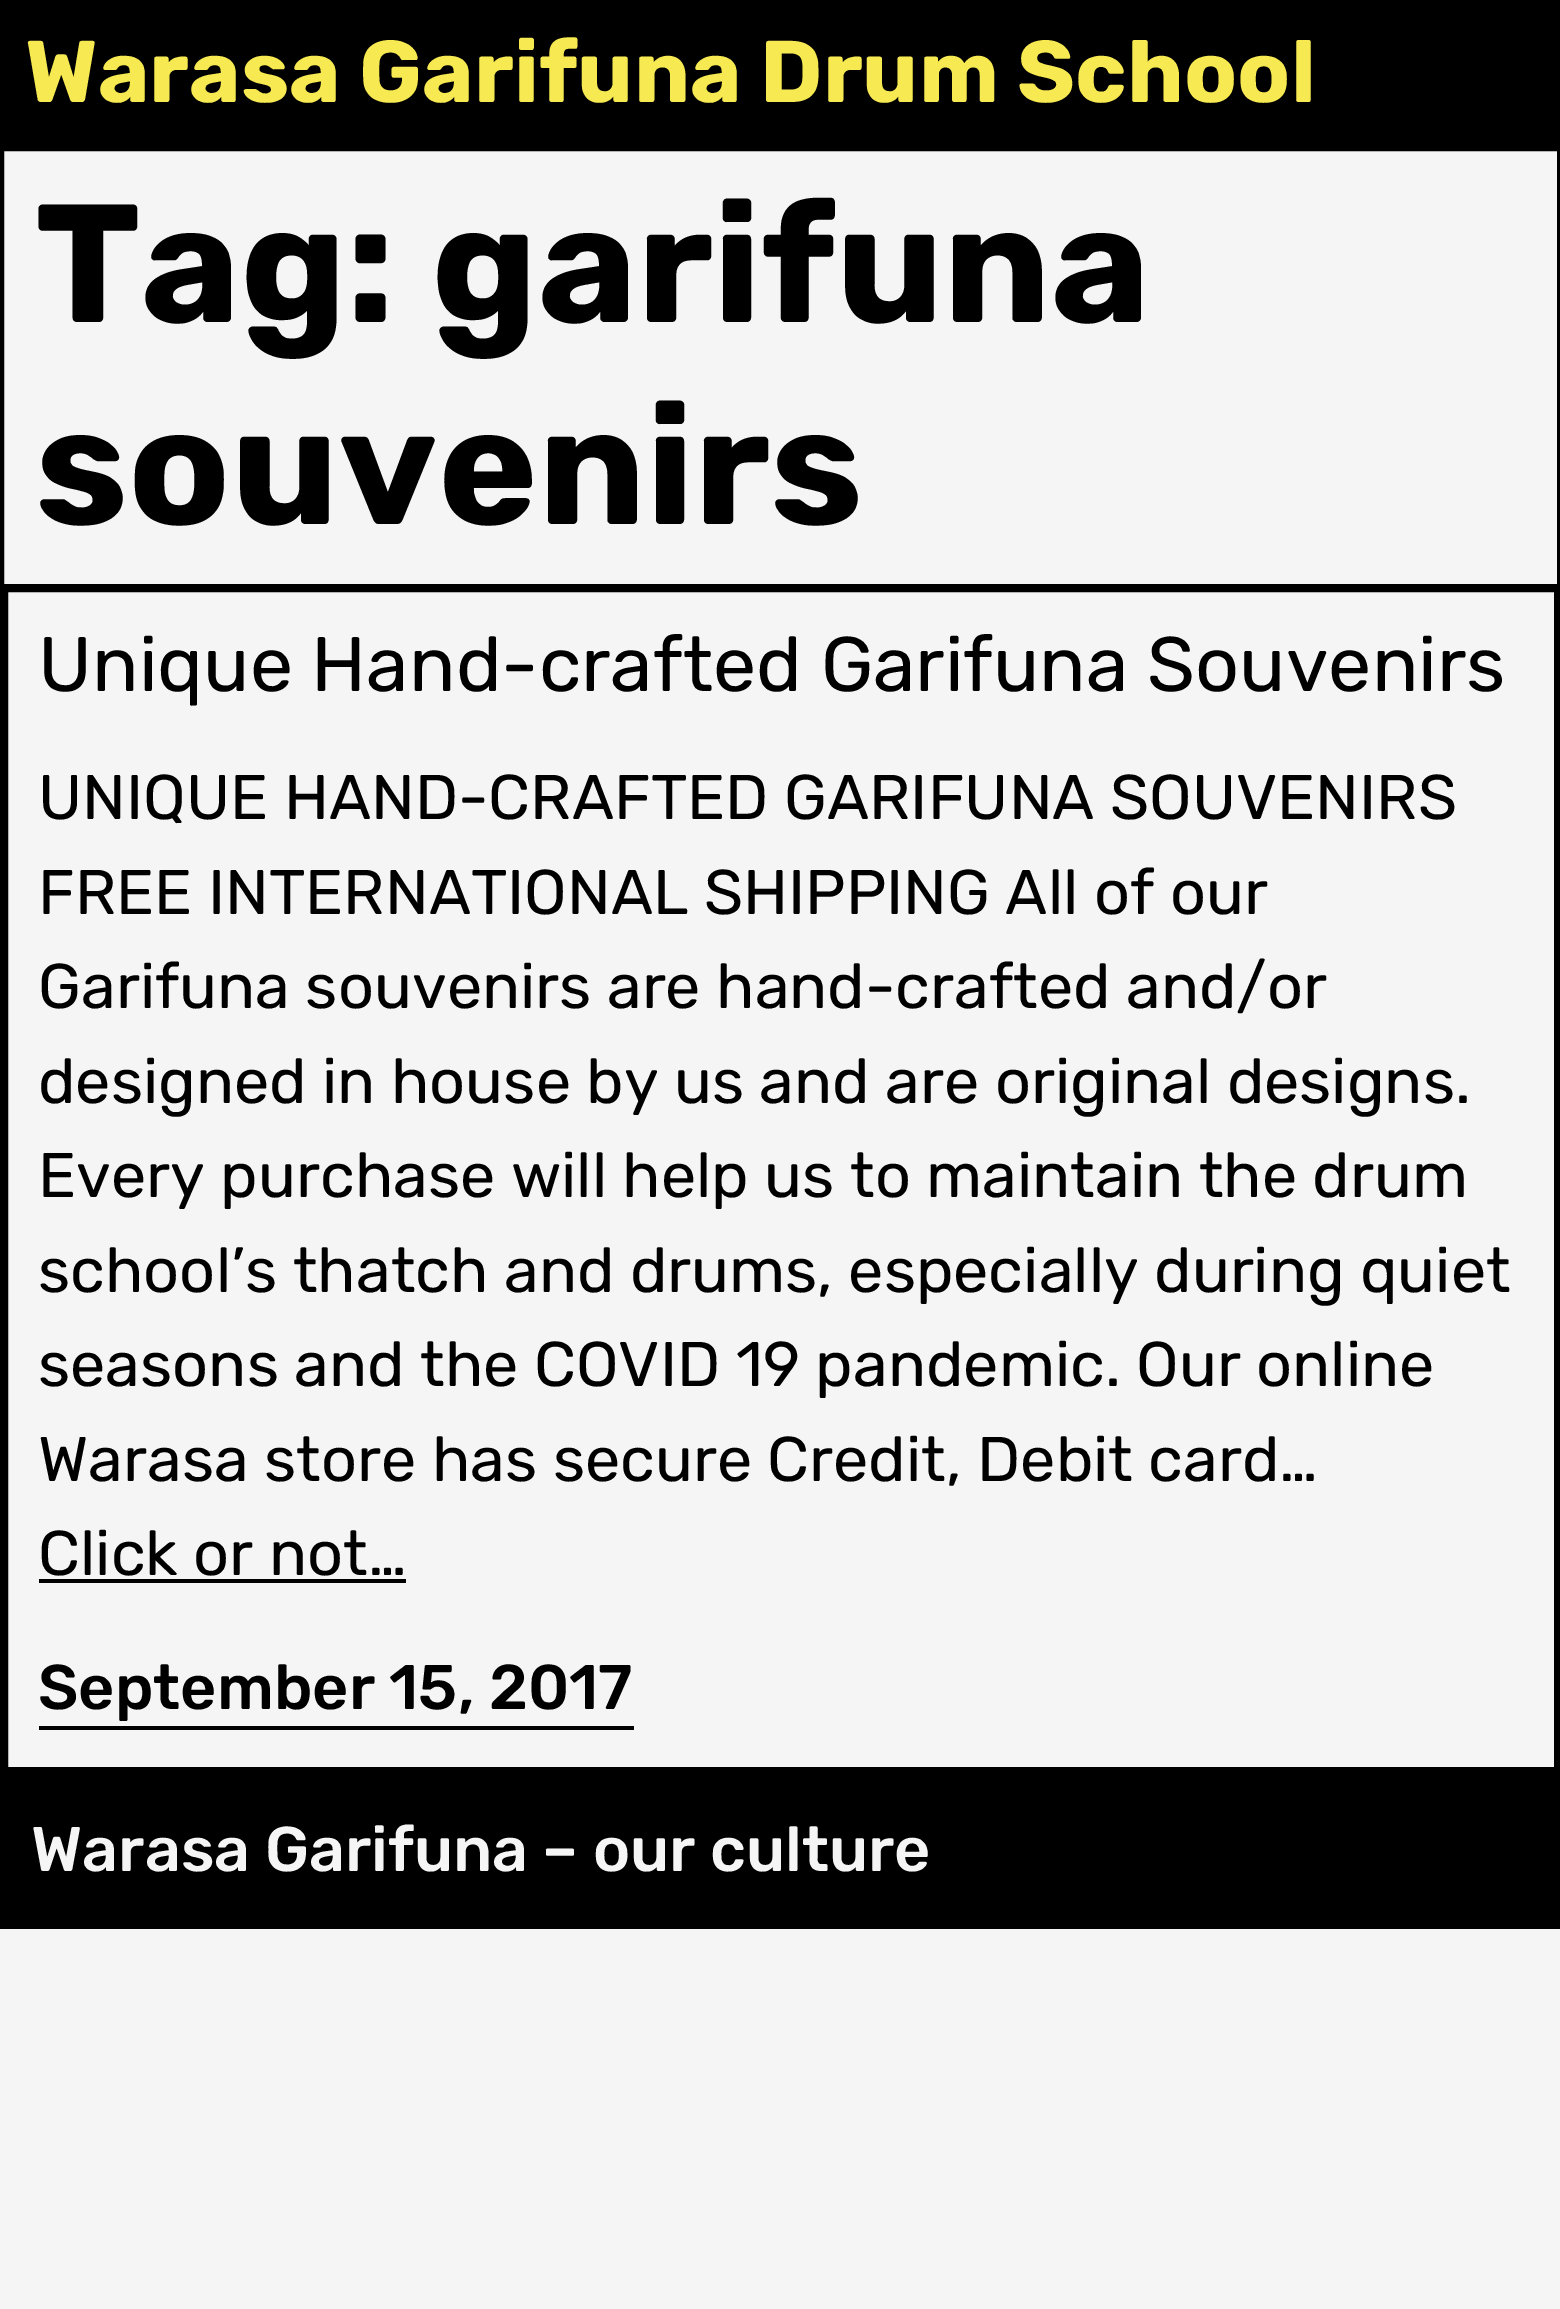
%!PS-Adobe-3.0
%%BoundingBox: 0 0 1560 2309
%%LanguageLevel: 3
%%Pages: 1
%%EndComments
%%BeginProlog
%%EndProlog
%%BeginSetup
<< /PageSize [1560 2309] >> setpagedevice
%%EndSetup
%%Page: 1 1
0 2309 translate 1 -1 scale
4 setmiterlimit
0.961 setgray
0 0 1560 2309 rectfill
0 setgray
0 0 1560 147 rectfill
4 setlinewidth
2 149 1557 437 rectstroke
1558 588 2 1183 rectfill
0 588 4 1183 rectfill
6 590 1550 1179 rectstroke
39 1579 367 4 rectfill
39 1726 595 4 rectfill
0 1771 1560 158 rectfill
/Rubik-Bold [87.5 0 0 -87.5 0 0] selectfont
0.969 0.914 0.318 setrgbcolor
25 102 moveto (Warasa Garifuna Drum School) show
/Rubik-Bold [168 0 0 -168 0 0] selectfont
0 setgray
35 322 moveto (Tag: garifuna) show
35 524 moveto (souvenirs) show
/Rubik-Regular [77 0 0 -77 0 0] selectfont
38 691 moveto (Unique Hand-crafted Garifuna Souvenirs) show
/Rubik-Regular [63 0 0 -63 0 0] selectfont
38 819 moveto (UNIQUE HAND-CRAFTED GARIFUNA SOUVENIRS) show
38 914 moveto (FREE INTERNATIONAL SHIPPING All of our) show
38 1008 moveto (Garifuna souvenirs are hand-crafted and/or) show
38 1103 moveto (designed in house by us and are original designs.) show
38 1197 moveto (Every purchase will help us to maintain the drum) show
38 1292 moveto (school’s thatch and drums, especially during quiet) show
38 1386 moveto (seasons and the COVID 19 pandemic. Our online) show
38 1481 moveto (Warasa store has secure Credit, Debit card…) show
38 1575 moveto (Click or not…) show
/Rubik-Medium [63 0 0 -63 0 0] selectfont
38 1709 moveto (September 15, 2017) show
0.961 setgray
31 1871 moveto (Warasa Garifuna – our culture) show
showpage
%%EOF
